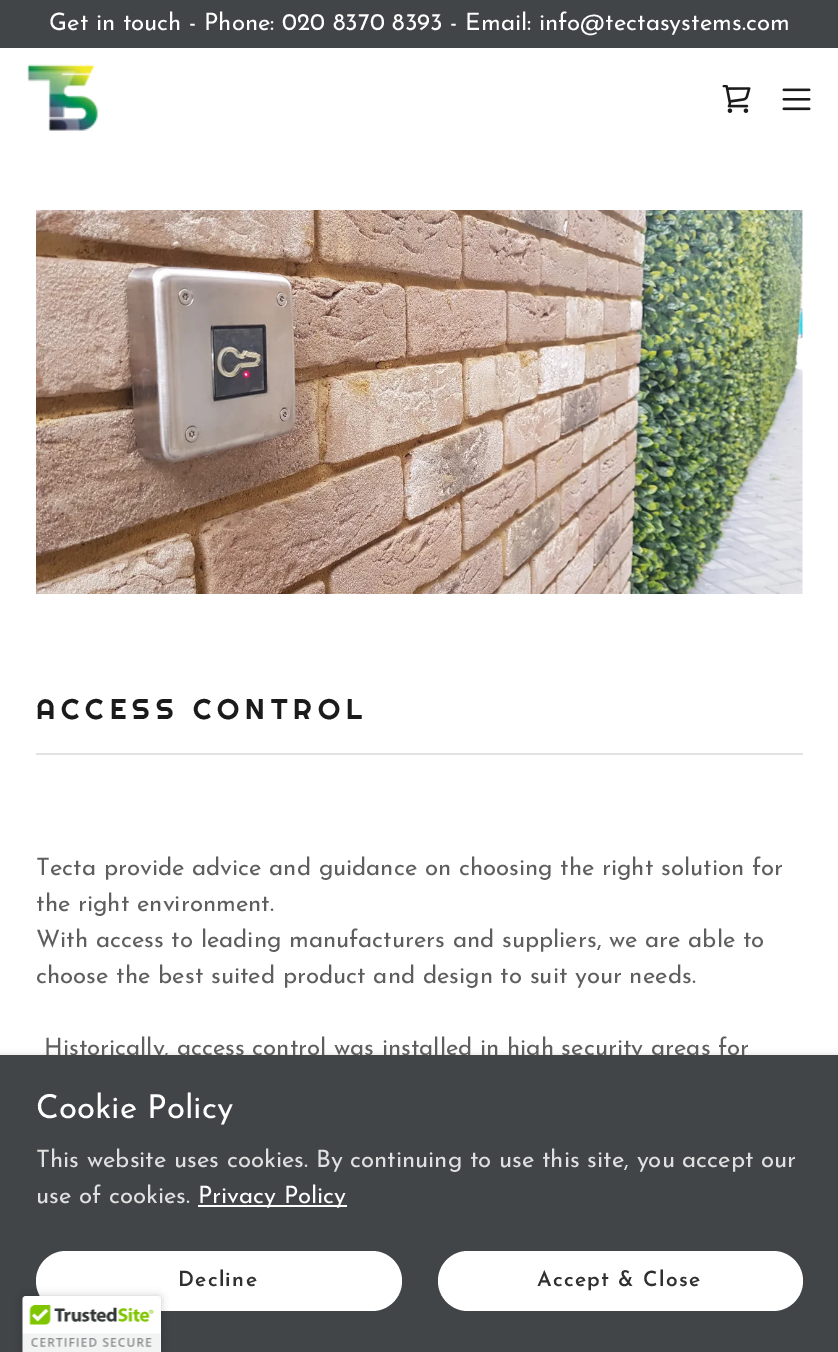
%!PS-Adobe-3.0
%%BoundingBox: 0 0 838 1352
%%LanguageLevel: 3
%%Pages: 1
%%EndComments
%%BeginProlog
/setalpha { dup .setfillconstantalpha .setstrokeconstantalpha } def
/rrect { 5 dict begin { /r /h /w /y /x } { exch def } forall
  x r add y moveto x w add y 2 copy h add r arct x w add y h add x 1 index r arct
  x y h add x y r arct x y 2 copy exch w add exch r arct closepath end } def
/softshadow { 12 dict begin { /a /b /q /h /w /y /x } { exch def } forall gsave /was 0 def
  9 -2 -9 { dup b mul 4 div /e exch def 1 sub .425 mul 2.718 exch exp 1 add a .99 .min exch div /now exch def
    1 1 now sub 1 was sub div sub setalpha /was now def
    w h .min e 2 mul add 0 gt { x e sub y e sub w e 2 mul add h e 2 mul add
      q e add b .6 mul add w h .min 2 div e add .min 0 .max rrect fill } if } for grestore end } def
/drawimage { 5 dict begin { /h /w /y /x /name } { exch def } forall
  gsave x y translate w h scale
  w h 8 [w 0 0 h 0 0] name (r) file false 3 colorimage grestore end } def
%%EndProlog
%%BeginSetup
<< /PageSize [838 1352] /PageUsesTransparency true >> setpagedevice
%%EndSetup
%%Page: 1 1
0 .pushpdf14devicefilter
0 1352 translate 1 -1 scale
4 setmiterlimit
1 setgray
0 0 838 1352 rectfill
0.259 0.271 0.278 setrgbcolor
0 0 838 48 rectfill
(images/1.raw) 27 64 71 67 drawimage
(images/2.raw) 722 85 29 28 drawimage
(images/3.raw) 782 88 29 23 drawimage
(images/4.raw) 36 210 767 384 drawimage
0.886 setgray
36 753 767 2 rectfill
0 setgray
0 1058 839 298 0 4.5 0.3 softshadow
/JosefinSans-Regular [24 0 0 -24 0 0] selectfont
1 setgray
49 30 moveto (Get in touch - Phone: 020 8370 8393 - Email: info@tectasystems.com) show
/Righteous-Regular [28.5 0 0 -28.5 0 0] selectfont
0.106 setgray
36 719 moveto 6 0 (ACCESS CONTROL) ashow
/JosefinSans-Regular [24 0 0 -24 0 0] selectfont
0.369 setgray
36 875 moveto (Tecta provide advice and guidance on choosing the right solution for) show
36 911 moveto (the right environment.) show
36 947 moveto (With access to leading manufacturers and suppliers, we are able to) show
36 983 moveto (choose the best suited product and design to suit your needs.) show
44 1055 moveto (Historically, access control was installed in high security areas for) show
0.259 0.271 0.278 setrgbcolor
0 1055 838 297 rectfill
/JosefinSans-Regular [33 0 0 -33 0 0] selectfont
1 setgray
36 1118 moveto (Cookie Policy) show
/JosefinSans-Regular [24 0 0 -24 0 0] selectfont
0.875 0.878 0.878 setrgbcolor
36 1167 moveto (This website uses cookies. By continuing to use this site, you accept our) show
36 1203 moveto (use of cookies.) show
1 setgray
198 1205 149 2 rectfill
198 1203 moveto (Privacy Policy) show
36 1251 366 60 30 rrect fill
/JosefinSans-SemiBold [21 0 0 -21 0 0] selectfont
0.188 setgray
178 1286 moveto 1.25 0 (Decline) ashow
1 setgray
438 1251 365 60 30 rrect fill
0.188 setgray
537 1286 moveto 1.25 0 (Accept & Close) ashow
0 setgray
23 1296 138 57 3 4 0.2 softshadow
1 setgray
newpath 26 1296 moveto 158 1296 lineto 159.5 1296 161 1297.5 161 1299 curveto 161 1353 lineto 23 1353 lineto 23 1299 lineto 23 1297.5 24.5 1296 26 1296 curveto closepath fill
(images/5.raw) 22 1296 139 56 drawimage
.poppdf14devicefilter showpage
%%EOF
